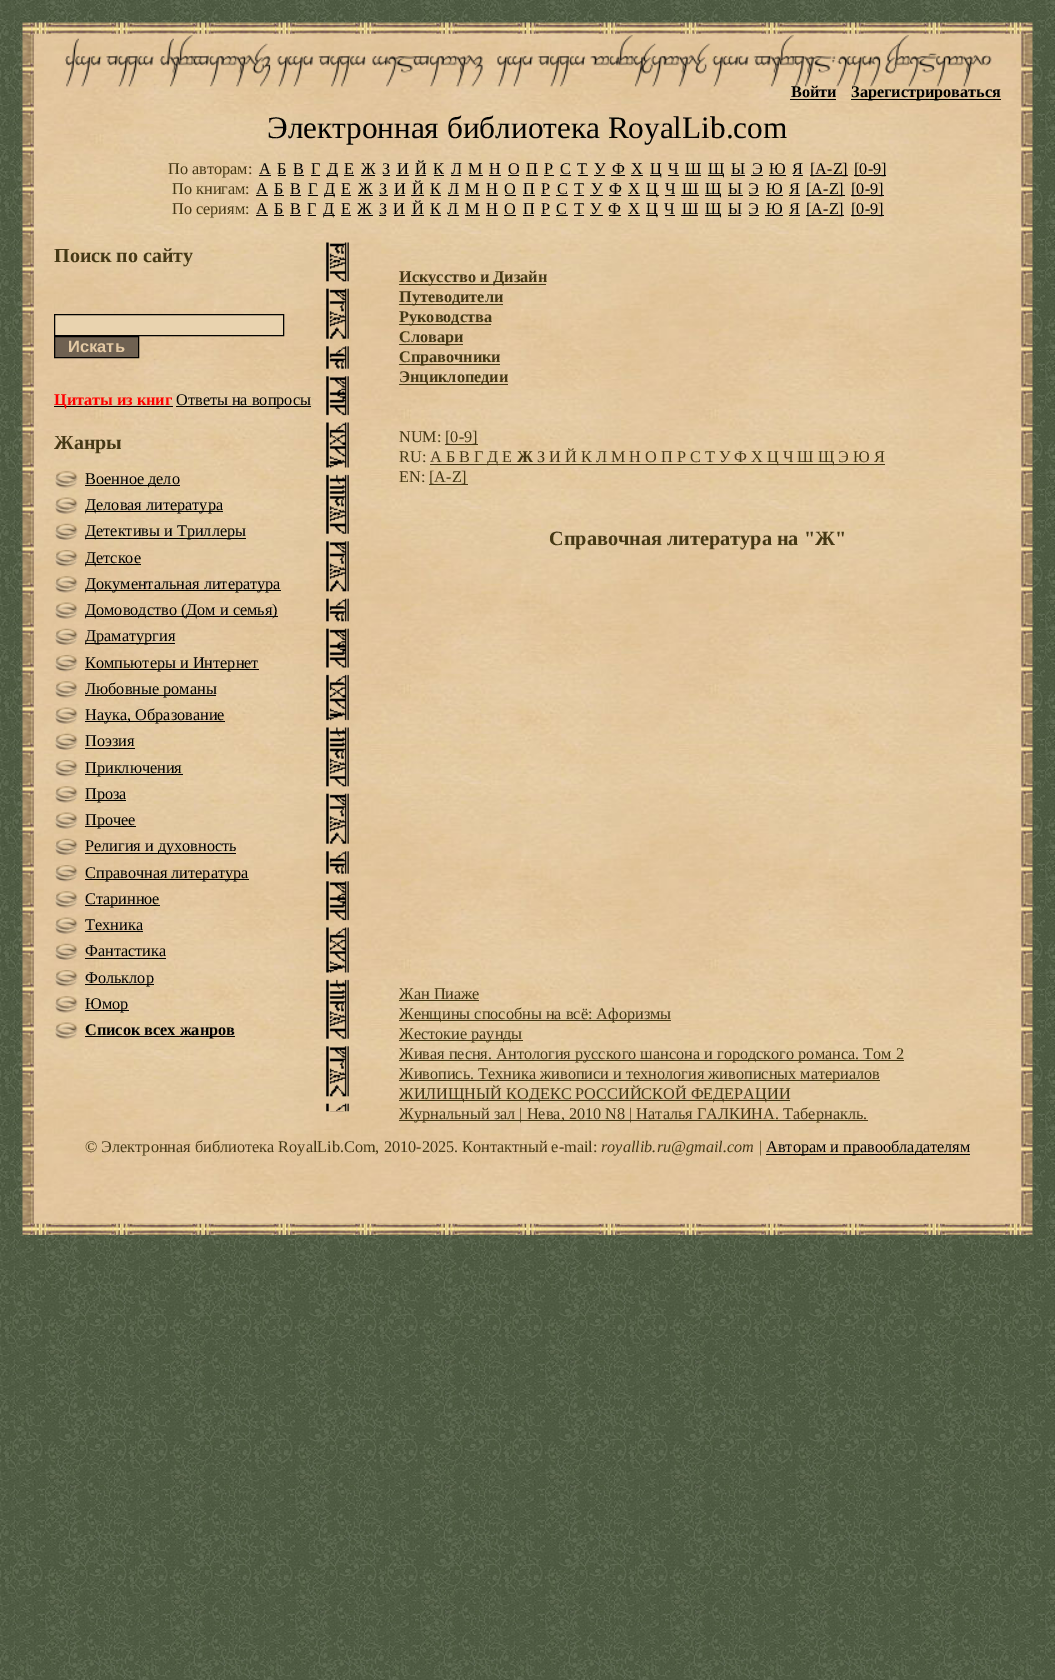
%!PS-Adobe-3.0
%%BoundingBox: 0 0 1055 1680
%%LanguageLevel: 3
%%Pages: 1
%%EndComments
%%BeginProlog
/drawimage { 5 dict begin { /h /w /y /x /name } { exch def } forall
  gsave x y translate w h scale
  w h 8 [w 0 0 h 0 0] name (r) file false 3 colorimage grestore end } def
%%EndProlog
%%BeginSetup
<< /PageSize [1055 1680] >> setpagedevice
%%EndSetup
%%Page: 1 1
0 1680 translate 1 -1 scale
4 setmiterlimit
1 setgray
0 0 1055 1680 rectfill
(images/1.raw) 0 0 1055 1680 drawimage
(images/2.raw) 22 22 1011 1213 drawimage
(images/3.raw) 33 33 989 1191 drawimage
(images/4.raw) 65 33 927 57 drawimage
0.008 0.008 0.004 setrgbcolor
790 99 46 1 rectfill
851 99 150 1 rectfill
259 175 12 1 rectfill
278 175 8 1 rectfill
294 175 10 1 rectfill
311 175 9 1 rectfill
326 175 12 1 rectfill
344 175 10 1 rectfill
361 175 14 1 rectfill
383 175 7 1 rectfill
396 175 13 1 rectfill
415 175 11 1 rectfill
434 175 10 1 rectfill
451 175 10 1 rectfill
469 175 14 1 rectfill
489 175 12 1 rectfill
508 175 11 1 rectfill
526 175 12 1 rectfill
544 175 10 1 rectfill
560 175 11 1 rectfill
578 175 10 1 rectfill
594 175 11 1 rectfill
611 175 14 1 rectfill
631 175 12 1 rectfill
650 175 11 1 rectfill
668 175 11 1 rectfill
685 175 16 1 rectfill
708 175 16 1 rectfill
731 175 14 1 rectfill
751 175 12 1 rectfill
769 175 17 1 rectfill
793 175 10 1 rectfill
810 175 38 1 rectfill
854 175 32 1 rectfill
256 195 12 1 rectfill
274 195 10 1 rectfill
290 195 11 1 rectfill
308 195 10 1 rectfill
324 195 11 1 rectfill
341 195 10 1 rectfill
358 195 15 1 rectfill
379 195 9 1 rectfill
394 195 11 1 rectfill
411 195 13 1 rectfill
430 195 11 1 rectfill
448 195 11 1 rectfill
465 195 15 1 rectfill
486 195 12 1 rectfill
505 195 11 1 rectfill
523 195 12 1 rectfill
541 195 9 1 rectfill
556 195 12 1 rectfill
574 195 10 1 rectfill
590 195 13 1 rectfill
609 195 12 1 rectfill
628 195 12 1 rectfill
646 195 13 1 rectfill
665 195 10 1 rectfill
681 195 18 1 rectfill
705 195 16 1 rectfill
728 195 15 1 rectfill
749 195 10 1 rectfill
766 195 17 1 rectfill
789 195 11 1 rectfill
806 195 39 1 rectfill
851 195 33 1 rectfill
256 215 12 1 rectfill
274 215 10 1 rectfill
290 215 11 1 rectfill
308 215 8 1 rectfill
324 215 11 1 rectfill
341 215 10 1 rectfill
358 215 15 1 rectfill
379 215 7 1 rectfill
394 215 11 1 rectfill
411 215 13 1 rectfill
430 215 11 1 rectfill
448 215 11 1 rectfill
465 215 15 1 rectfill
486 215 12 1 rectfill
504 215 12 1 rectfill
523 215 11 1 rectfill
541 215 9 1 rectfill
556 215 12 1 rectfill
574 215 10 1 rectfill
590 215 13 1 rectfill
609 215 12 1 rectfill
628 215 12 1 rectfill
646 215 12 1 rectfill
665 215 10 1 rectfill
681 215 17 1 rectfill
705 215 16 1 rectfill
728 215 13 1 rectfill
749 215 10 1 rectfill
765 215 18 1 rectfill
789 215 11 1 rectfill
806 215 38 1 rectfill
851 215 33 1 rectfill
(images/5.raw) 326 242 23 870 drawimage
0.914 0.827 0.686 setrgbcolor
newpath 54.5 314.5 moveto 283.5 314.5 lineto 283.5 335.5 lineto 54.5 335.5 lineto closepath gsave fill grestore
0.008 0.008 0.004 setrgbcolor
stroke
0.435 0.38 0.318 setrgbcolor
newpath 54.5 336.5 moveto 138.5 336.5 lineto 138.5 357.5 lineto 54.5 357.5 lineto closepath gsave fill grestore
0.008 0.008 0.004 setrgbcolor
stroke
54 406 119 1 rectfill
176 406 135 1 rectfill
(images/6.raw) 55 471 23 17 drawimage
85 485 95 1 rectfill
(images/7.raw) 55 497 23 17 drawimage
85 511 138 1 rectfill
(images/8.raw) 55 523 23 17 drawimage
85 538 161 1 rectfill
(images/9.raw) 55 550 23 17 drawimage
85 564 56 1 rectfill
(images/10.raw) 55 576 23 17 drawimage
85 590 196 1 rectfill
(images/11.raw) 55 602 23 17 drawimage
85 616 193 1 rectfill
(images/12.raw) 55 628 23 17 drawimage
85 643 90 1 rectfill
(images/13.raw) 55 655 23 17 drawimage
85 669 174 1 rectfill
(images/14.raw) 55 681 23 17 drawimage
85 695 131 1 rectfill
(images/15.raw) 55 707 23 17 drawimage
85 721 140 1 rectfill
(images/16.raw) 55 733 23 17 drawimage
85 748 50 1 rectfill
(images/17.raw) 55 760 23 17 drawimage
85 774 98 1 rectfill
(images/18.raw) 55 786 23 17 drawimage
85 800 41 1 rectfill
(images/19.raw) 55 812 23 17 drawimage
85 826 51 1 rectfill
(images/20.raw) 55 838 23 17 drawimage
85 853 151 1 rectfill
(images/21.raw) 55 865 23 17 drawimage
85 879 164 1 rectfill
(images/22.raw) 55 891 23 17 drawimage
85 905 75 1 rectfill
(images/23.raw) 55 917 23 17 drawimage
85 931 58 1 rectfill
(images/24.raw) 55 943 23 17 drawimage
85 958 81 1 rectfill
(images/25.raw) 55 970 23 17 drawimage
85 984 69 1 rectfill
(images/26.raw) 55 996 23 17 drawimage
85 1010 44 1 rectfill
(images/27.raw) 55 1022 23 17 drawimage
85 1036 150 1 rectfill
0.271 0.22 0.082 setrgbcolor
399 284 147 1 rectfill
399 304 104 1 rectfill
399 324 92 1 rectfill
399 344 64 1 rectfill
399 364 101 1 rectfill
399 384 109 1 rectfill
445 444 33 1 rectfill
430 464 455 1 rectfill
429 484 39 1 rectfill
399 1000 80 1 rectfill
399 1020 272 1 rectfill
399 1040 124 1 rectfill
399 1060 505 1 rectfill
399 1080 481 1 rectfill
399 1100 391 1 rectfill
399 1120 469 1 rectfill
0.008 0.008 0.004 setrgbcolor
766 1154 204 1 rectfill
/LiberationSerif-Bold [16.25 0 0 -16.25 0 0] selectfont
791 97 moveto (Войти) show
851 97 moveto (Зарегистрироваться) show
/LiberationSerif-Regular [31.25 0 0 -31.25 0 0] selectfont
267 138 moveto (Электронная библиотека RoyalLib.com) show
/LiberationSerif-Regular [16.25 0 0 -16.25 0 0] selectfont
0.271 0.22 0.082 setrgbcolor
168 174 moveto (По авторам:) show
0.008 0.008 0.004 setrgbcolor
259 174 moveto (А) show
277 174 moveto (Б) show
293 174 moveto (В) show
311 174 moveto (Г) show
327 174 moveto (Д) show
344 174 moveto (Е) show
361 174 moveto (Ж) show
382 174 moveto (З) show
397 174 moveto (И) show
415 174 moveto (Й) show
433 174 moveto (К) show
451 174 moveto (Л) show
468 174 moveto (М) show
489 174 moveto (Н) show
508 174 moveto (О) show
526 174 moveto (П) show
544 174 moveto (Р) show
560 174 moveto (С) show
577 174 moveto (Т) show
594 174 moveto (У) show
612 174 moveto (Ф) show
631 174 moveto (Х) show
650 174 moveto (Ц) show
668 174 moveto (Ч) show
685 174 moveto (Ш) show
708 174 moveto (Щ) show
731 174 moveto (Ы) show
752 174 moveto (Э) show
769 174 moveto (Ю) show
792 174 moveto (Я) show
810 174 moveto ([A-Z]) show
854 174 moveto ([0-9]) show
0.271 0.22 0.082 setrgbcolor
172 194 moveto (По книгам:) show
0.008 0.008 0.004 setrgbcolor
256 194 moveto (А) show
274 194 moveto (Б) show
290 194 moveto (В) show
308 194 moveto (Г) show
324 194 moveto (Д) show
341 194 moveto (Е) show
358 194 moveto (Ж) show
379 194 moveto (З) show
394 194 moveto (И) show
412 194 moveto (Й) show
430 194 moveto (К) show
448 194 moveto (Л) show
465 194 moveto (М) show
486 194 moveto (Н) show
504 194 moveto (О) show
523 194 moveto (П) show
541 194 moveto (Р) show
557 194 moveto (С) show
574 194 moveto (Т) show
591 194 moveto (У) show
609 194 moveto (Ф) show
628 194 moveto (Х) show
646 194 moveto (Ц) show
665 194 moveto (Ч) show
682 194 moveto (Ш) show
705 194 moveto (Щ) show
728 194 moveto (Ы) show
748 194 moveto (Э) show
766 194 moveto (Ю) show
789 194 moveto (Я) show
806 194 moveto ([A-Z]) show
851 194 moveto ([0-9]) show
0.271 0.22 0.082 setrgbcolor
172 214 moveto (По сериям:) show
0.008 0.008 0.004 setrgbcolor
256 214 moveto (А) show
274 214 moveto (Б) show
290 214 moveto (В) show
307 214 moveto (Г) show
323 214 moveto (Д) show
341 214 moveto (Е) show
357 214 moveto (Ж) show
379 214 moveto (З) show
393 214 moveto (И) show
412 214 moveto (Й) show
430 214 moveto (К) show
447 214 moveto (Л) show
465 214 moveto (М) show
486 214 moveto (Н) show
504 214 moveto (О) show
523 214 moveto (П) show
541 214 moveto (Р) show
556 214 moveto (С) show
574 214 moveto (Т) show
590 214 moveto (У) show
608 214 moveto (Ф) show
628 214 moveto (Х) show
646 214 moveto (Ц) show
664 214 moveto (Ч) show
682 214 moveto (Ш) show
705 214 moveto (Щ) show
728 214 moveto (Ы) show
748 214 moveto (Э) show
766 214 moveto (Ю) show
789 214 moveto (Я) show
806 214 moveto ([A-Z]) show
851 214 moveto ([0-9]) show
/LiberationSerif-Bold [20 0 0 -20 0 0] selectfont
0.271 0.22 0.082 setrgbcolor
54 262 moveto (Поиск по сайту) show
/LiberationSans-Bold [16.5 0 0 -16.5 0 0] selectfont
0.898 0.792 0.643 setrgbcolor
68 352 moveto (Искать) show
/LiberationSerif-Bold [16.25 0 0 -16.25 0 0] selectfont
1 0 0 setrgbcolor
54 405 moveto (Цитаты из книг) show
/LiberationSerif-Regular [16.25 0 0 -16.25 0 0] selectfont
0.008 0.008 0.004 setrgbcolor
176 405 moveto (Ответы на вопросы) show
/LiberationSerif-Bold [20 0 0 -20 0 0] selectfont
0.271 0.22 0.082 setrgbcolor
54 449 moveto (Жанры) show
/LiberationSerif-Regular [16.25 0 0 -16.25 0 0] selectfont
0.008 0.008 0.004 setrgbcolor
85 484 moveto (Военное дело) show
85 510 moveto (Деловая литература) show
85 536 moveto (Детективы и Триллеры) show
85 563 moveto (Детское) show
85 589 moveto (Документальная литература) show
85 615 moveto (Домоводство \(Дом и семья\)) show
85 641 moveto (Драматургия) show
85 668 moveto (Компьютеры и Интернет) show
85 694 moveto (Любовные романы) show
85 720 moveto (Наука, Образование) show
85 746 moveto (Поэзия) show
85 773 moveto (Приключения) show
85 799 moveto (Проза) show
85 825 moveto (Прочее) show
85 851 moveto (Религия и духовность) show
85 878 moveto (Справочная литература) show
85 904 moveto (Старинное) show
85 930 moveto (Техника) show
85 956 moveto (Фантастика) show
85 983 moveto (Фольклор) show
85 1009 moveto (Юмор) show
/LiberationSerif-Bold [16.25 0 0 -16.25 0 0] selectfont
85 1035 moveto (Список всех жанров) show
0.271 0.22 0.082 setrgbcolor
399 282 moveto (Искусство и Дизайн) show
399 302 moveto (Путеводители) show
399 322 moveto (Руководства) show
399 342 moveto (Словари) show
399 362 moveto (Справочники) show
399 382 moveto (Энциклопедии) show
/LiberationSerif-Regular [16.25 0 0 -16.25 0 0] selectfont
399 442 moveto (NUM:) show
445 442 moveto ([0-9]) show
399 462 moveto (RU: А Б В Г) show
487 462 moveto (Д Е) show
/LiberationSerif-Bold [16.25 0 0 -16.25 0 0] selectfont
517 462 moveto (Ж) show
/LiberationSerif-Regular [16.25 0 0 -16.25 0 0] selectfont
537 462 moveto (З И Й К Л М Н О П Р С Т У Ф Х Ц Ч Ш Щ Э Ю Я) show
399 482 moveto (EN:) show
429 482 moveto ([A-Z]) show
/LiberationSerif-Bold [20.25 0 0 -20.25 0 0] selectfont
549 545 moveto (Справочная литература на "Ж") show
/LiberationSerif-Regular [16.25 0 0 -16.25 0 0] selectfont
399 999 moveto (Жан Пиаже) show
399 1019 moveto (Женщины способны на всё: Афоризмы) show
399 1039 moveto (Жестокие раунды) show
399 1059 moveto (Живая песня. Антология русского шансона и городского романса. Том 2) show
399 1079 moveto (Живопись. Техника живописи и технология живописных материалов) show
399 1099 moveto (ЖИЛИЩНЫЙ КОДЕКС РОССИЙСКОЙ ФЕДЕРАЦИИ) show
399 1119 moveto (Журнальный зал | Нева, 2010 N8 | Наталья ГАЛКИНА. Табернакль.) show
85 1152 moveto (© Электронная библиотека RoyalLib.Com, 2010-2025. Контактный e-mail:) show
/LiberationSerif-Italic [16.25 0 0 -16.25 0 0] selectfont
601 1152 moveto (royallib.ru@gmail.com) show
/LiberationSerif-Regular [16.25 0 0 -16.25 0 0] selectfont
759 1152 moveto (|) show
0.008 0.008 0.004 setrgbcolor
766 1152 moveto (Авторам и правообладателям) show
showpage
%%EOF
